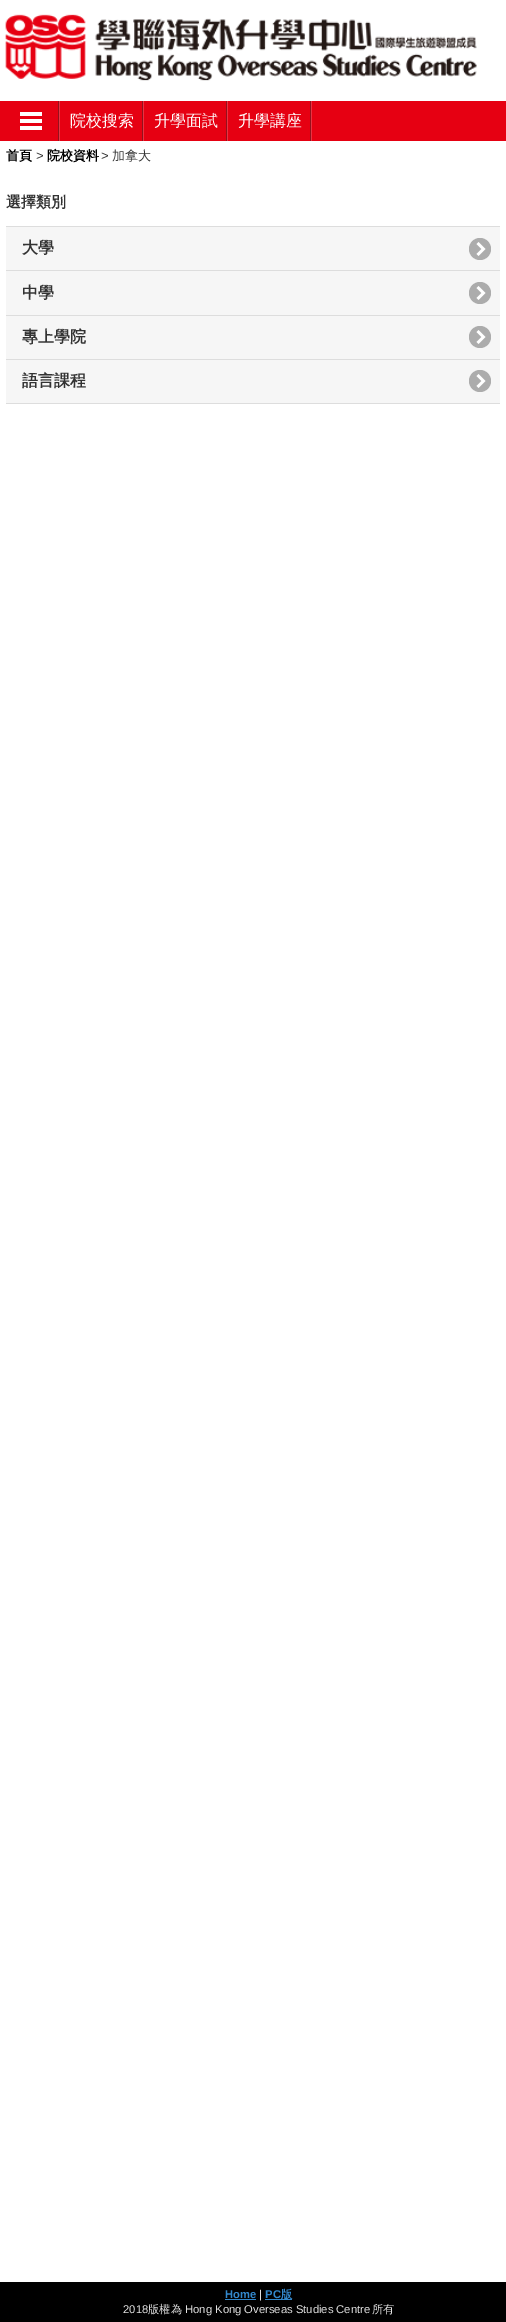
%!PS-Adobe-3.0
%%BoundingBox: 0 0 506 2322
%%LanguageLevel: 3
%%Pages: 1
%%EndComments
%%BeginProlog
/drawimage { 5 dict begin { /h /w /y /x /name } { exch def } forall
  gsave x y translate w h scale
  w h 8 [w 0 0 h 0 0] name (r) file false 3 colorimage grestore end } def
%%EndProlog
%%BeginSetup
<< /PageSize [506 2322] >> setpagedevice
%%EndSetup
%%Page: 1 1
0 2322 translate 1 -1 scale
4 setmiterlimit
1 setgray
0 0 506 2322 rectfill
(images/1.raw) 5 14 472 67 drawimage
0.902 0 0.071 setrgbcolor
0 101 506 40 rectfill
(images/2.raw) 58 101 2 40 drawimage
(images/3.raw) 20 112 22 18 drawimage
(images/2.raw) 142 101 2 40 drawimage
(images/2.raw) 226 101 2 40 drawimage
(images/2.raw) 310 101 2 40 drawimage
0.965 setgray
6 227 494 43 rectfill
0.867 setgray
6 226 494 1 rectfill
0.675 setgray
newpath 480 249 11 0 360 arc closepath fill
(images/4.raw) 476 242 10 14 drawimage
0.965 setgray
6 271 494 44 rectfill
0.867 setgray
6 270 494 1 rectfill
0.675 setgray
newpath 480 293 11 0 360 arc closepath fill
(images/4.raw) 476 286 10 14 drawimage
0.965 setgray
6 316 494 43 rectfill
0.867 setgray
6 315 494 1 rectfill
0.675 setgray
newpath 480 337 11 0 360 arc closepath fill
(images/4.raw) 476 330 10 14 drawimage
0.965 setgray
6 360 494 43 rectfill
0.867 setgray
6 359 494 1 rectfill
6 403 494 1 rectfill
0.675 setgray
newpath 480 381 11 0 360 arc closepath fill
(images/4.raw) 476 374 10 14 drawimage
0 setgray
0 2282 506 40 rectfill
0.2 0.533 0.8 setrgbcolor
225 2299 31 1 rectfill
265 2299 27 1 rectfill
/WenQuanYiZenHei-Medium [16 0 0 -16 0 0] selectfont
1 setgray
70 126 moveto (院校搜索) show
154 126 moveto (升學面試) show
238 126 moveto (升學講座) show
/WenQuanYiZenHei-Bold [13 0 0 -13 0 0] selectfont
0 setgray
6 160 moveto (首頁) show
/LiberationSans-Regular [13 0 0 -13 0 0] selectfont
0.2 setgray
36 160 moveto (>) show
/WenQuanYiZenHei-Bold [13 0 0 -13 0 0] selectfont
0 setgray
47 160 moveto (院校資料) show
/LiberationSans-Regular [13 0 0 -13 0 0] selectfont
0.2 setgray
101 160 moveto (>) show
/WenQuanYiZenHei-Medium [13 0 0 -13 0 0] selectfont
112 160 moveto (加拿大) show
/WenQuanYiZenHei-Bold [15 0 0 -15 0 0] selectfont
6 207 moveto (選擇類別) show
/WenQuanYiZenHei-Bold [16 0 0 -16 0 0] selectfont
22 253 moveto (大學) show
22 298 moveto (中學) show
22 342 moveto (專上學院) show
22 386 moveto (語言課程) show
/LiberationSans-Bold [11.25 0 0 -11.25 0 0] selectfont
0.2 0.533 0.8 setrgbcolor
225 2298 moveto (Home) show
/LiberationSans-Regular [11.25 0 0 -11.25 0 0] selectfont
0.882 setgray
259 2298 moveto (|) show
/LiberationSans-Bold [11.25 0 0 -11.25 0 0] selectfont
0.2 0.533 0.8 setrgbcolor
265 2298 moveto (PC) show
/WenQuanYiZenHei-Bold [11.25 0 0 -11.25 0 0] selectfont
281 2298 moveto (版) show
/LiberationSans-Regular [11.25 0 0 -11.25 0 0] selectfont
0.882 setgray
123 2313 moveto (2018) show
/WenQuanYiZenHei-Medium [11.25 0 0 -11.25 0 0] selectfont
148 2313 moveto (版權為) show
/LiberationSans-Regular [11.25 0 0 -11.25 0 0] selectfont
185 2313 moveto (Hong Kong Overseas Studies Centre) show
/WenQuanYiZenHei-Medium [11.25 0 0 -11.25 0 0] selectfont
372 2313 moveto (所有) show
showpage
%%EOF
